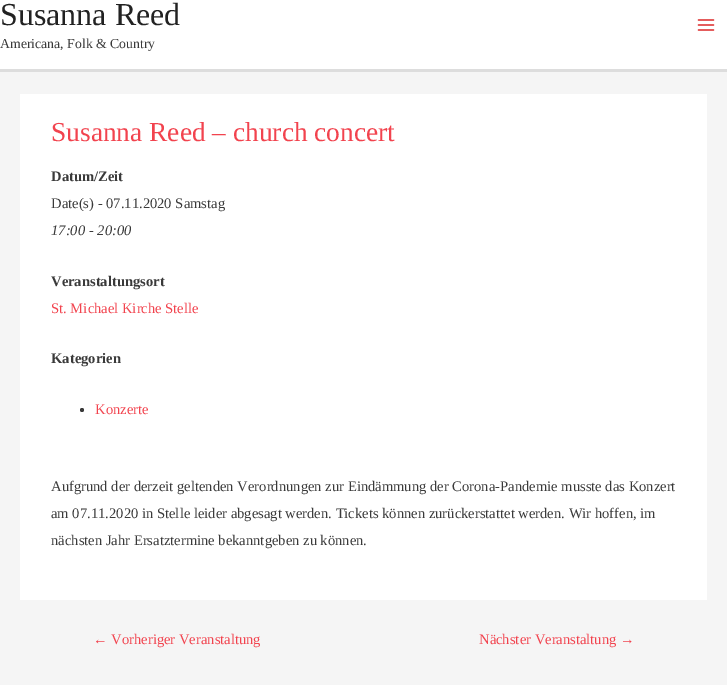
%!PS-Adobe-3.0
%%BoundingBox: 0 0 727 685
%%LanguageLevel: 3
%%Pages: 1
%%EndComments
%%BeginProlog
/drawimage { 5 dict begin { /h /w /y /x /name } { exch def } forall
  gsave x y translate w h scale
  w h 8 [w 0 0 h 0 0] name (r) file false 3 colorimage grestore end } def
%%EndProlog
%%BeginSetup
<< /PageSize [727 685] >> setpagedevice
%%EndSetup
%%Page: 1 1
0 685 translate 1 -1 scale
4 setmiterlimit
0.961 setgray
0 0 727 685 rectfill
1 setgray
0 0 727 69 rectfill
0.867 setgray
0 69 727 3 rectfill
(images/1.raw) 697 19 18 12 drawimage
1 setgray
20 94 687 506 rectfill
0.227 setgray
newpath 82 410 2 0 360 arc closepath fill
/LiberationSerif-Regular [32 0 0 -32 0 0] selectfont
0.133 setgray
0 25 moveto (Susanna Reed) show
/LiberationSerif-Regular [13.75 0 0 -13.75 0 0] selectfont
0.227 setgray
0 48 moveto (Americana, Folk & Country) show
/LiberationSerif-Regular [27.4 0 0 -27.4 0 0] selectfont
0.949 0.263 0.306 setrgbcolor
51 141 moveto (Susanna Reed – church concert) show
/LiberationSerif-Bold [14.6 0 0 -14.6 0 0] selectfont
0.227 setgray
51 181 moveto (Datum/Zeit) show
/LiberationSerif-Regular [14.6 0 0 -14.6 0 0] selectfont
51 208 moveto (Date\(s\) - 07.11.2020 Samstag) show
/LiberationSerif-Italic [14.6 0 0 -14.6 0 0] selectfont
51 235 moveto (17:00 - 20:00) show
/LiberationSerif-Bold [14.6 0 0 -14.6 0 0] selectfont
51 286 moveto (Veranstaltungsort) show
/LiberationSerif-Regular [14.6 0 0 -14.6 0 0] selectfont
0.949 0.263 0.306 setrgbcolor
51 313 moveto (St. Michael Kirche Stelle) show
/LiberationSerif-Bold [14.6 0 0 -14.6 0 0] selectfont
0.227 setgray
51 363 moveto (Kategorien) show
/LiberationSerif-Regular [14.6 0 0 -14.6 0 0] selectfont
0.949 0.263 0.306 setrgbcolor
95 414 moveto (Konzerte) show
0.227 setgray
51 491 moveto (Aufgrund der derzeit geltenden Verordnungen zur Eindämmung der Corona-Pandemie musste das Konzert) show
51 518 moveto (am 07.11.2020 in Stelle leider abgesagt werden. Tickets können zurückerstattet werden. Wir hoffen, im) show
51 545 moveto (nächsten Jahr Ersatztermine bekanntgeben zu können.) show
0.949 0.263 0.306 setrgbcolor
93 644 moveto (← Vorheriger Veranstaltung) show
479 644 moveto (Nächster Veranstaltung →) show
showpage
%%EOF
